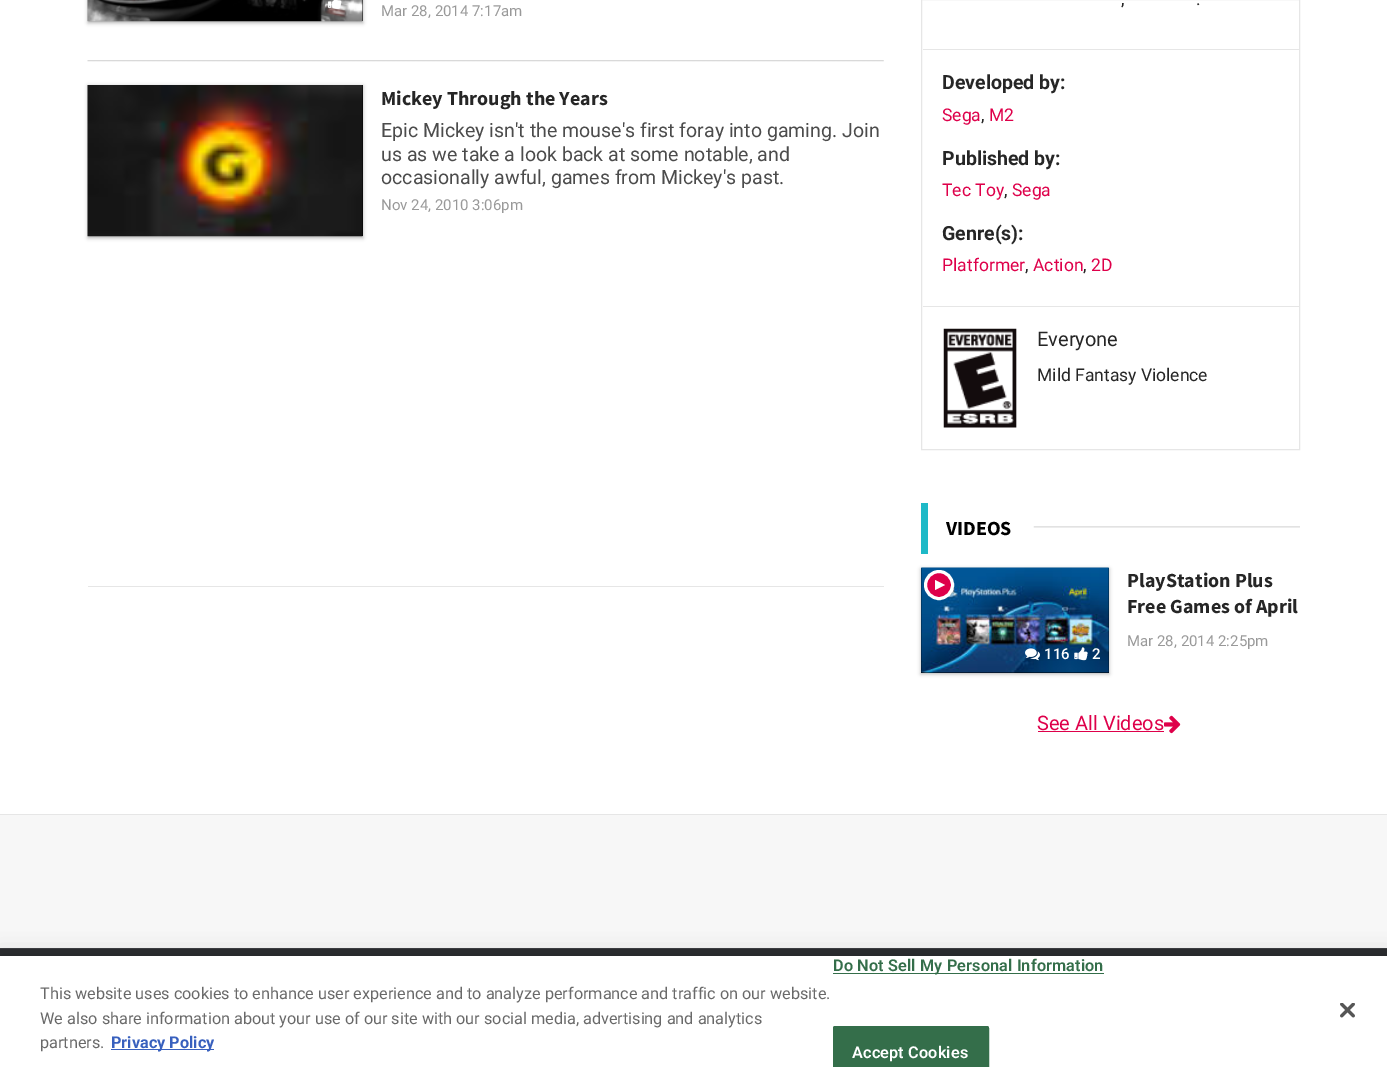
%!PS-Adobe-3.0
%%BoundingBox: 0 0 1387 1067
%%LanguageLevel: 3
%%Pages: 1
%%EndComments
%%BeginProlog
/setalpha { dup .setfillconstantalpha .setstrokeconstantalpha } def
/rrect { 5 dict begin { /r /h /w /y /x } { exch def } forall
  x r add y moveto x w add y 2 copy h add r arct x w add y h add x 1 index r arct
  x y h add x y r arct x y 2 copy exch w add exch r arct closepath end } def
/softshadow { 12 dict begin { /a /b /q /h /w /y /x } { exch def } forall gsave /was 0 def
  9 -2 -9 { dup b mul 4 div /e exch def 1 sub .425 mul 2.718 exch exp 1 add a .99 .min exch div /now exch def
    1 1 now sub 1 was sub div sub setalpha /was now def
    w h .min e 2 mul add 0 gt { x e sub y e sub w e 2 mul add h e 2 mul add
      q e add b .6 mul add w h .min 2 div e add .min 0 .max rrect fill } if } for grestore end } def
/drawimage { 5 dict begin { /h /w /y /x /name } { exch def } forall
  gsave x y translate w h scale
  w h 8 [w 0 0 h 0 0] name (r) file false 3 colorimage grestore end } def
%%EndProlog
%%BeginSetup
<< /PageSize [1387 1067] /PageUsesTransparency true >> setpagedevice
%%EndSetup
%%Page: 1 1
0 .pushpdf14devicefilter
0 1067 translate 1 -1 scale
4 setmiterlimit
1 setgray
0 0 1387 1067 rectfill
0 setgray
362 0 1 21 rectfill
(images/1.raw) 87 0 276 22 drawimage
gsave
newpath 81 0 moveto 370 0 lineto 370 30 lineto 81 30 lineto closepath 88 -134 moveto 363 -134 lineto 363 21 lineto 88 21 lineto closepath eoclip newpath
88 -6 275 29 0 2 0.3 softshadow
grestore
(images/2.raw) 328 0 14 9 drawimage
(images/3.raw) 87 60 797 2 drawimage
362 85 1 151 rectfill
(images/4.raw) 87 85 276 152 drawimage
gsave
newpath 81 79 moveto 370 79 lineto 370 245 lineto 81 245 lineto closepath 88 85 moveto 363 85 lineto 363 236 lineto 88 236 lineto closepath eoclip newpath
88 86 275 152 0 2 0.3 softshadow
grestore
0.902 setgray
88 586 796 1 rectfill
921.5 -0.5 378 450 rectstroke
923 49 376 1 rectfill
923 306 376 1 rectfill
(images/5.raw) 943 328 74 100 drawimage
0.118 0.725 0.78 setrgbcolor
921 503 7 51 rectfill
(images/6.raw) 1033 526 267 2 drawimage
0 setgray
921 568 188 105 rectfill
(images/7.raw) 921 567 188 106 drawimage
0.871 0 0.29 setrgbcolor
newpath 939 585 13.5 0 360 arc closepath gsave fill grestore
1 setgray
3 setlinewidth
stroke
newpath 935 590 moveto 935 580 lineto 945 585 lineto closepath fill
gsave
newpath 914 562 moveto 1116 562 lineto 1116 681 lineto 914 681 lineto closepath 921 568 moveto 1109 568 lineto 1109 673 lineto 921 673 lineto closepath eoclip newpath
0 setgray
921 569 188 105 0 2 0.3 softshadow
grestore
(images/8.raw) 1025 648 15 13 drawimage
(images/9.raw) 1074 647 14 14 drawimage
0.871 0 0.29 setrgbcolor
1038 731 126 1 rectfill
(images/10.raw) 1164 715 17 19 drawimage
0.969 setgray
0 815 1387 133 rectfill
0.902 setgray
0 814 1387 1 rectfill
0.169 0.176 0.192 setrgbcolor
0 949 1387 7 rectfill
0.251 0.259 0.275 setrgbcolor
0 948 1387 1 rectfill
0 setgray
0 956 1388 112 0 11 0.2 softshadow
1 setgray
0 956 1387 111 rectfill
0.22 0.376 0.745 setrgbcolor
111 1049 103 1 rectfill
0.204 0.431 0.29 setrgbcolor
833 973 271 1 rectfill
newpath 835.5 1026 moveto 986.5 1026 lineto 988 1026 989 1027 989 1028.5 curveto 989 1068 lineto 833 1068 lineto 833 1028.5 lineto 833 1027 834 1026 835.5 1026 curveto closepath fill
1 setlinewidth
833.5 1026.5 155 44 2 rrect stroke
(images/11.raw) 1340 1003 15 15 drawimage
/Roboto-Regular [15 0 0 -15 0 0] selectfont
0.6 setgray
381 16 moveto (Mar 28, 2014 7:17am) show
/SourceSansPro-Bold [20 0 0 -20 0 0] selectfont
0.149 setgray
381 105 moveto (Mickey Through the Years) show
/Roboto-Regular [19.55 0 0 -19.55 0 0] selectfont
0.298 setgray
381 137 moveto (Epic Mickey isn't the mouse's first foray into gaming. Join) show
381 161 moveto (us as we take a look back at some notable, and) show
381 184 moveto (occasionally awful, games from Mickey's past.) show
/Roboto-Regular [15 0 0 -15 0 0] selectfont
0.6 setgray
381 210 moveto (Nov 24, 2010 3:06pm) show
/Roboto-Regular [17.5 0 0 -17.5 0 0] selectfont
0.149 setgray
1121 5 moveto (,) show
1196 5 moveto (.) show
/Roboto-Bold [19.55 0 0 -19.55 0 0] selectfont
942 89 moveto (Developed by:) show
/Roboto-Regular [17.5 0 0 -17.5 0 0] selectfont
0.871 0 0.29 setrgbcolor
942 121 moveto (Sega) show
0.149 setgray
981 121 moveto (,) show
0.871 0 0.29 setrgbcolor
989 121 moveto (M2) show
/Roboto-Bold [19.55 0 0 -19.55 0 0] selectfont
0.149 setgray
942 165 moveto (Published by:) show
/Roboto-Regular [17.5 0 0 -17.5 0 0] selectfont
0.871 0 0.29 setrgbcolor
942 196 moveto (Tec Toy) show
0.149 setgray
1004 196 moveto (,) show
0.871 0 0.29 setrgbcolor
1012 196 moveto (Sega) show
/Roboto-Bold [19.55 0 0 -19.55 0 0] selectfont
0.149 setgray
942 240 moveto (Genre\(s\):) show
/Roboto-Regular [17.5 0 0 -17.5 0 0] selectfont
0.871 0 0.29 setrgbcolor
942 271 moveto (Platformer) show
0.149 setgray
1025 271 moveto (,) show
0.871 0 0.29 setrgbcolor
1033 271 moveto (Action) show
0.149 setgray
1083 271 moveto (,) show
0.871 0 0.29 setrgbcolor
1091 271 moveto (2D) show
/Roboto-Regular [20 0 0 -20 0 0] selectfont
0.149 setgray
1037 346 moveto (Everyone) show
/Roboto-Regular [17.5 0 0 -17.5 0 0] selectfont
1037 381 moveto (Mild Fantasy Violence) show
/SourceSansPro-Bold [20 0 0 -20 0 0] selectfont
0 setgray
946 535 moveto (VIDEOS) show
0.149 setgray
1127 587 moveto (PlayStation Plus) show
1127 613 moveto (Free Games of April) show
/Roboto-Regular [15 0 0 -15 0 0] selectfont
0.6 setgray
1127 646 moveto (Mar 28, 2014 2:25pm) show
/Roboto-Medium [15 0 0 -15 0 0] selectfont
1 setgray
1044 659 moveto (116) show
1092 659 moveto (2) show
/Roboto-Regular [20 0 0 -20 0 0] selectfont
0.871 0 0.29 setrgbcolor
1037 730 moveto (See All Videos) show
/Roboto-Regular [16.25 0 0 -16.25 0 0] selectfont
0.412 setgray
40 999 moveto (This website uses cookies to enhance user experience and to analyze performance and traffic on our website.) show
40 1024 moveto (We also share information about your use of our site with our social media, advertising and analytics) show
40 1048 moveto (partners.) show
/Roboto-Bold [16.25 0 0 -16.25 0 0] selectfont
0.22 0.376 0.745 setrgbcolor
111 1048 moveto (Privacy Policy) show
/Roboto-SemiBold [16.25 0 0 -16.25 0 0] selectfont
0.204 0.431 0.29 setrgbcolor
833 971 moveto 0.15 0 (Do Not Sell My Personal Information) ashow
1 setgray
852 1058 moveto 0.15 0 (Accept Cookies) ashow
.poppdf14devicefilter showpage
%%EOF
